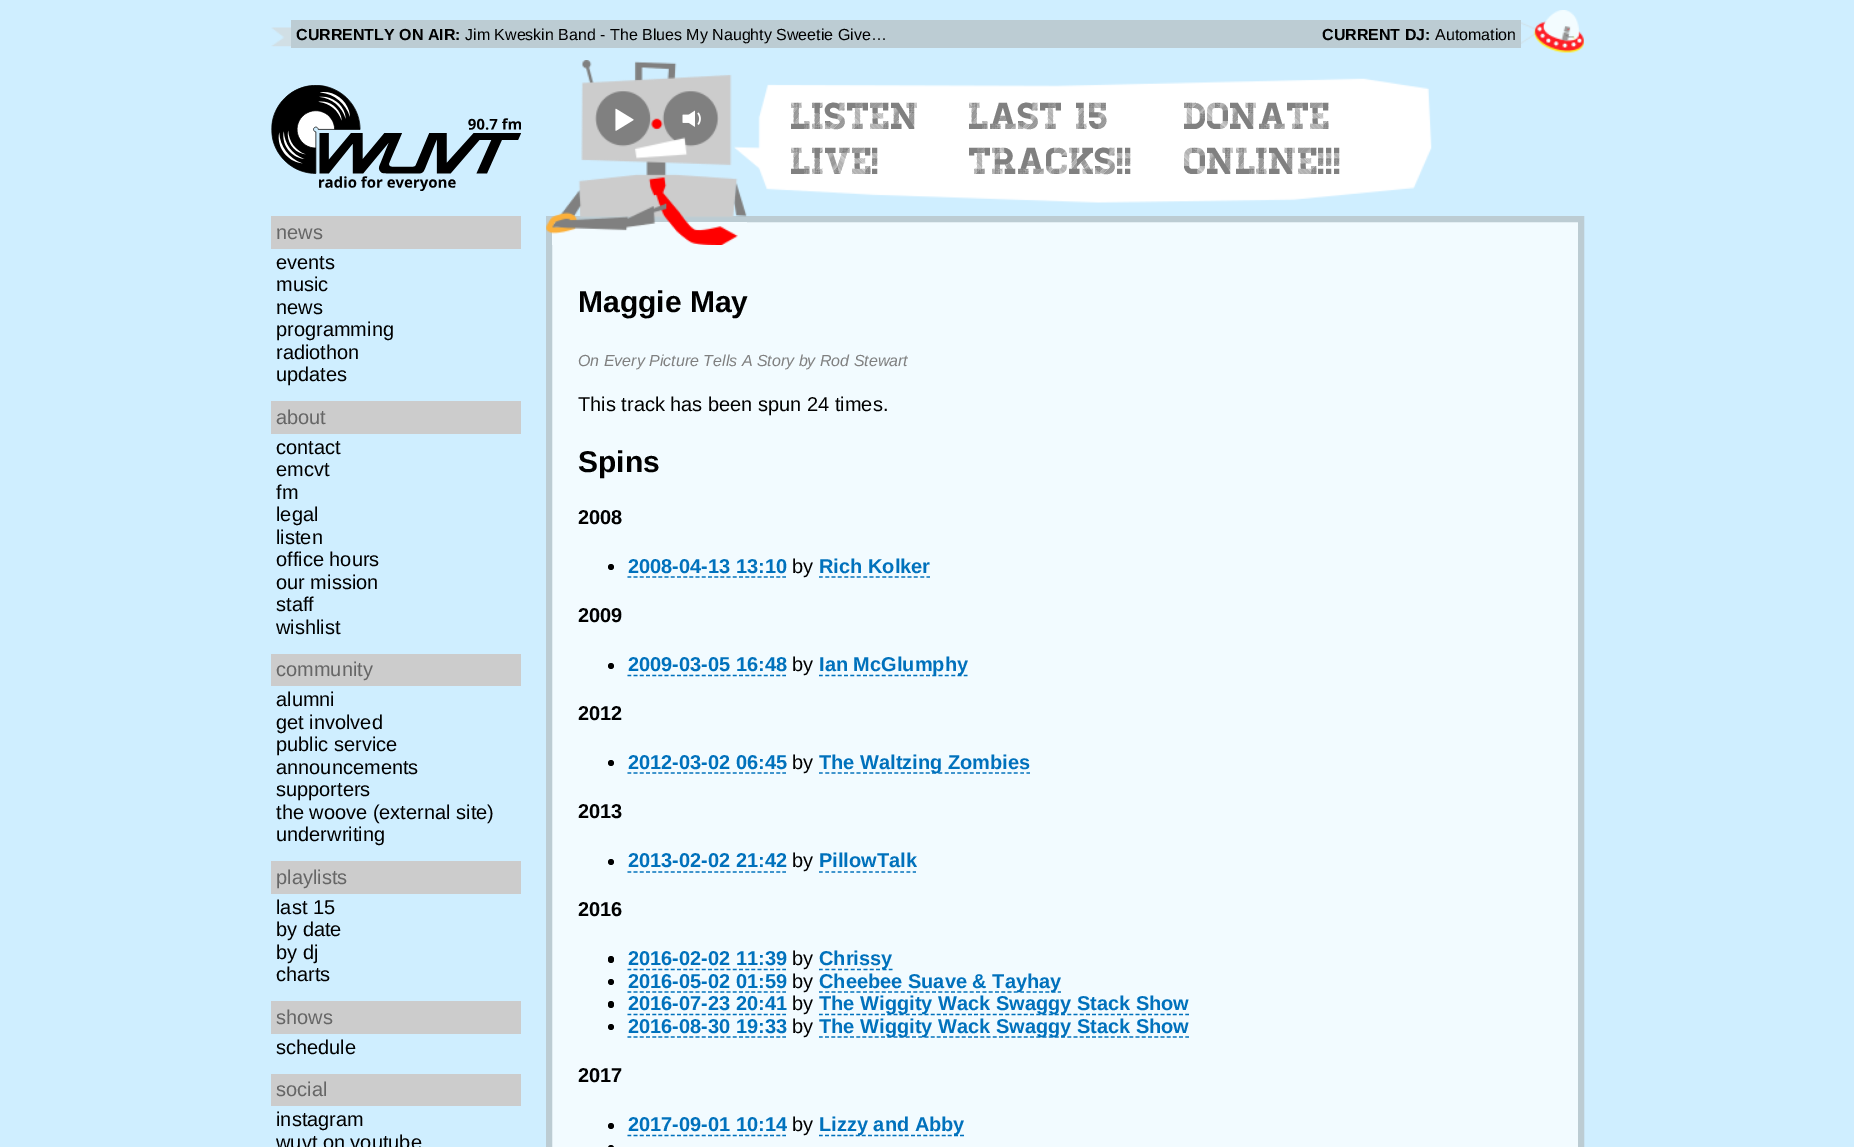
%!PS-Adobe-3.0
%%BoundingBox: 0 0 1854 1147
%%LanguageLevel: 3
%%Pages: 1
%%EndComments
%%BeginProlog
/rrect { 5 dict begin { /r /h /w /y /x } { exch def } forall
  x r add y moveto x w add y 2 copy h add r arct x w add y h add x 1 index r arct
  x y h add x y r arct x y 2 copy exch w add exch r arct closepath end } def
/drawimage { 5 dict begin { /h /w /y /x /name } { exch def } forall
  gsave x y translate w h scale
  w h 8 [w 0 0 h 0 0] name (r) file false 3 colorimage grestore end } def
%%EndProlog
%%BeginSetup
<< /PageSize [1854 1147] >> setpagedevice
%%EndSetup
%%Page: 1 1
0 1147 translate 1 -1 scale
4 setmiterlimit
0.812 0.933 1 setrgbcolor
0 0 1854 1147 rectfill
(images/1.raw) 271 10 1313 43 drawimage
0.737 0.8 0.827 setrgbcolor
291 20 1230 28 rectfill
(images/2.raw) 271 85 250 106 drawimage
(images/6.raw) 734 78 698 125 drawimage
0.949 0.984 1 setrgbcolor
newpath 549 219 moveto 1581 219 lineto 1581 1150 lineto 549 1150 lineto closepath gsave fill grestore
0.737 0.8 0.827 setrgbcolor
6 setlinewidth
stroke
(images/3.raw) 546 60 201 185 drawimage
(images/4.raw) 615 108 19 23 drawimage
(images/5.raw) 682 110 19 17 drawimage
0.8 setgray
271 216 250 33 rectfill
271 401 250 33 rectfill
271 654 250 32 rectfill
271 861 250 33 rectfill
271 1001 250 33 rectfill
271 1074 250 32 rectfill
0 setgray
newpath 611 567 3 0 360 arc closepath fill
0 0.443 0.737 setrgbcolor
1.2 setlinewidth
[3.75 2.45] 0 setdash
newpath 627.5 577 moveto 786 577 lineto stroke
[3.75 2.58] 0 setdash
newpath 819 577 moveto 930 577 lineto stroke
0 setgray
newpath 611 666 3 0 360 arc closepath fill
0 0.443 0.737 setrgbcolor
[3.75 2.45] 0 setdash
newpath 627.5 675.5 moveto 786 675.5 lineto stroke
[3.75 2.55] 0 setdash
newpath 819 675.5 moveto 967.5 675.5 lineto stroke
0 setgray
newpath 611 763 3 0 360 arc closepath fill
0 0.443 0.737 setrgbcolor
[3.75 2.45] 0 setdash
newpath 627.5 773 moveto 786 773 lineto stroke
[3.75 2.54] 0 setdash
newpath 819 773 moveto 1030 773 lineto stroke
0 setgray
newpath 611 862 3 0 360 arc closepath fill
0 0.443 0.737 setrgbcolor
[3.75 2.45] 0 setdash
newpath 627.5 872 moveto 786 872 lineto stroke
[3.75 2.5] 0 setdash
newpath 819 872 moveto 916 872 lineto stroke
0 setgray
608 956 6 7 3 rrect fill
0 0.443 0.737 setrgbcolor
[3.75 2.45] 0 setdash
newpath 627.5 969.5 moveto 786 969.5 lineto stroke
[3.75 2.61] 0 setdash
newpath 819 969.5 moveto 892.5 969.5 lineto stroke
0 setgray
newpath 611 982 3 0 360 arc closepath fill
0 0.443 0.737 setrgbcolor
[3.75 2.45] 0 setdash
newpath 627.5 992 moveto 786 992 lineto stroke
[3.75 2.54] 0 setdash
newpath 819 992 moveto 1061 992 lineto stroke
0 setgray
608 1001 6 7 3 rrect fill
0 0.443 0.737 setrgbcolor
[3.75 2.45] 0 setdash
newpath 627.5 1014.5 moveto 786 1014.5 lineto stroke
[3.75 2.46] 0 setdash
newpath 819 1014.5 moveto 1189 1014.5 lineto stroke
0 setgray
newpath 611 1027 3 0 360 arc closepath fill
0 0.443 0.737 setrgbcolor
[3.75 2.45] 0 setdash
newpath 627.5 1037 moveto 786 1037 lineto stroke
[3.75 2.46] 0 setdash
newpath 819 1037 moveto 1189 1037 lineto stroke
0 setgray
newpath 611 1126 3 0 360 arc closepath fill
0 0.443 0.737 setrgbcolor
[3.75 2.45] 0 setdash
newpath 627.5 1135.5 moveto 786 1135.5 lineto stroke
[3.75 2.39] 0 setdash
newpath 819 1135.5 moveto 964 1135.5 lineto stroke
0 setgray
608 1145 6 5 3 rrect fill
/LiberationSans-Bold [16 0 0 -16 0 0] selectfont
296 40 moveto (CURRENTLY ON AIR:) show
/LiberationSans-Regular [16 0 0 -16 0 0] selectfont
465 40 moveto (Jim Kweskin Band - The Blues My Naughty Sweetie Give…) show
/LiberationSans-Bold [16 0 0 -16 0 0] selectfont
1322 40 moveto (CURRENT DJ:) show
/LiberationSans-Regular [16 0 0 -16 0 0] selectfont
1435 40 moveto (Automation) show
/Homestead-Regular [37.5 0 0 -37.5 0 0] selectfont
0.502 setgray
791 129 moveto (LISTEN) show
791 174 moveto (LIVE!) show
969 129 moveto (LAST 15) show
969 174 moveto (TRACKS!!) show
1184 129 moveto (DONATE) show
1184 174 moveto (ONLINE!!!) show
/LiberationSans-Regular [20 0 0 -20 0 0] selectfont
0.4 setgray
276 239 moveto (news) show
0 setgray
276 269 moveto (events) show
276 291 moveto (music) show
276 314 moveto (news) show
276 336 moveto (programming) show
276 359 moveto (radiothon) show
276 381 moveto (updates) show
0.4 setgray
276 424 moveto (about) show
0 setgray
276 454 moveto (contact) show
276 476 moveto (emcvt) show
276 499 moveto (fm) show
276 521 moveto (legal) show
276 544 moveto (listen) show
276 566 moveto (office hours) show
276 589 moveto (our mission) show
276 611 moveto (staff) show
276 634 moveto (wishlist) show
0.4 setgray
276 676 moveto (community) show
0 setgray
276 706 moveto (alumni) show
276 729 moveto (get involved) show
276 751 moveto (public service) show
276 774 moveto (announcements) show
276 796 moveto (supporters) show
276 819 moveto (the woove \(external site\)) show
276 841 moveto (underwriting) show
0.4 setgray
276 884 moveto (playlists) show
0 setgray
276 914 moveto (last 15) show
276 936 moveto (by date) show
276 959 moveto (by dj) show
276 981 moveto (charts) show
0.4 setgray
276 1024 moveto (shows) show
0 setgray
276 1054 moveto (schedule) show
0.4 setgray
276 1096 moveto (social) show
0 setgray
276 1126 moveto (instagram) show
276 1149 moveto (wuvt on youtube) show
/LiberationSans-Bold [30 0 0 -30 0 0] selectfont
578 312 moveto (Maggie May) show
/LiberationSans-Italic [16 0 0 -16 0 0] selectfont
0.502 setgray
578 366 moveto (On Every Picture Tells A Story by Rod Stewart) show
/LiberationSans-Regular [20 0 0 -20 0 0] selectfont
0 setgray
578 411 moveto (This track has been spun 24 times.) show
/LiberationSans-Bold [30 0 0 -30 0 0] selectfont
578 472 moveto (Spins) show
/LiberationSans-Bold [20 0 0 -20 0 0] selectfont
578 524 moveto (2008) show
0 0.443 0.737 setrgbcolor
628 573 moveto (2008-04-13 13:10) show
/LiberationSans-Regular [20 0 0 -20 0 0] selectfont
0 setgray
792 573 moveto (by) show
/LiberationSans-Bold [20 0 0 -20 0 0] selectfont
0 0.443 0.737 setrgbcolor
819 573 moveto (Rich Kolker) show
0 setgray
578 622 moveto (2009) show
0 0.443 0.737 setrgbcolor
628 671 moveto (2009-03-05 16:48) show
/LiberationSans-Regular [20 0 0 -20 0 0] selectfont
0 setgray
792 671 moveto (by) show
/LiberationSans-Bold [20 0 0 -20 0 0] selectfont
0 0.443 0.737 setrgbcolor
819 671 moveto (Ian McGlumphy) show
0 setgray
578 720 moveto (2012) show
0 0.443 0.737 setrgbcolor
628 769 moveto (2012-03-02 06:45) show
/LiberationSans-Regular [20 0 0 -20 0 0] selectfont
0 setgray
792 769 moveto (by) show
/LiberationSans-Bold [20 0 0 -20 0 0] selectfont
0 0.443 0.737 setrgbcolor
819 769 moveto (The Waltzing Zombies) show
0 setgray
578 818 moveto (2013) show
0 0.443 0.737 setrgbcolor
628 867 moveto (2013-02-02 21:42) show
/LiberationSans-Regular [20 0 0 -20 0 0] selectfont
0 setgray
792 867 moveto (by) show
/LiberationSans-Bold [20 0 0 -20 0 0] selectfont
0 0.443 0.737 setrgbcolor
819 867 moveto (PillowTalk) show
0 setgray
578 916 moveto (2016) show
0 0.443 0.737 setrgbcolor
628 965 moveto (2016-02-02 11:39) show
/LiberationSans-Regular [20 0 0 -20 0 0] selectfont
0 setgray
792 965 moveto (by) show
/LiberationSans-Bold [20 0 0 -20 0 0] selectfont
0 0.443 0.737 setrgbcolor
819 965 moveto (Chrissy) show
628 988 moveto (2016-05-02 01:59) show
/LiberationSans-Regular [20 0 0 -20 0 0] selectfont
0 setgray
792 988 moveto (by) show
/LiberationSans-Bold [20 0 0 -20 0 0] selectfont
0 0.443 0.737 setrgbcolor
819 988 moveto (Cheebee Suave & Tayhay) show
628 1010 moveto (2016-07-23 20:41) show
/LiberationSans-Regular [20 0 0 -20 0 0] selectfont
0 setgray
792 1010 moveto (by) show
/LiberationSans-Bold [20 0 0 -20 0 0] selectfont
0 0.443 0.737 setrgbcolor
819 1010 moveto (The Wiggity Wack Swaggy Stack Show) show
628 1033 moveto (2016-08-30 19:33) show
/LiberationSans-Regular [20 0 0 -20 0 0] selectfont
0 setgray
792 1033 moveto (by) show
/LiberationSans-Bold [20 0 0 -20 0 0] selectfont
0 0.443 0.737 setrgbcolor
819 1033 moveto (The Wiggity Wack Swaggy Stack Show) show
0 setgray
578 1082 moveto (2017) show
0 0.443 0.737 setrgbcolor
628 1131 moveto (2017-09-01 10:14) show
/LiberationSans-Regular [20 0 0 -20 0 0] selectfont
0 setgray
792 1131 moveto (by) show
/LiberationSans-Bold [20 0 0 -20 0 0] selectfont
0 0.443 0.737 setrgbcolor
819 1131 moveto (Lizzy and Abby) show
showpage
%%EOF
